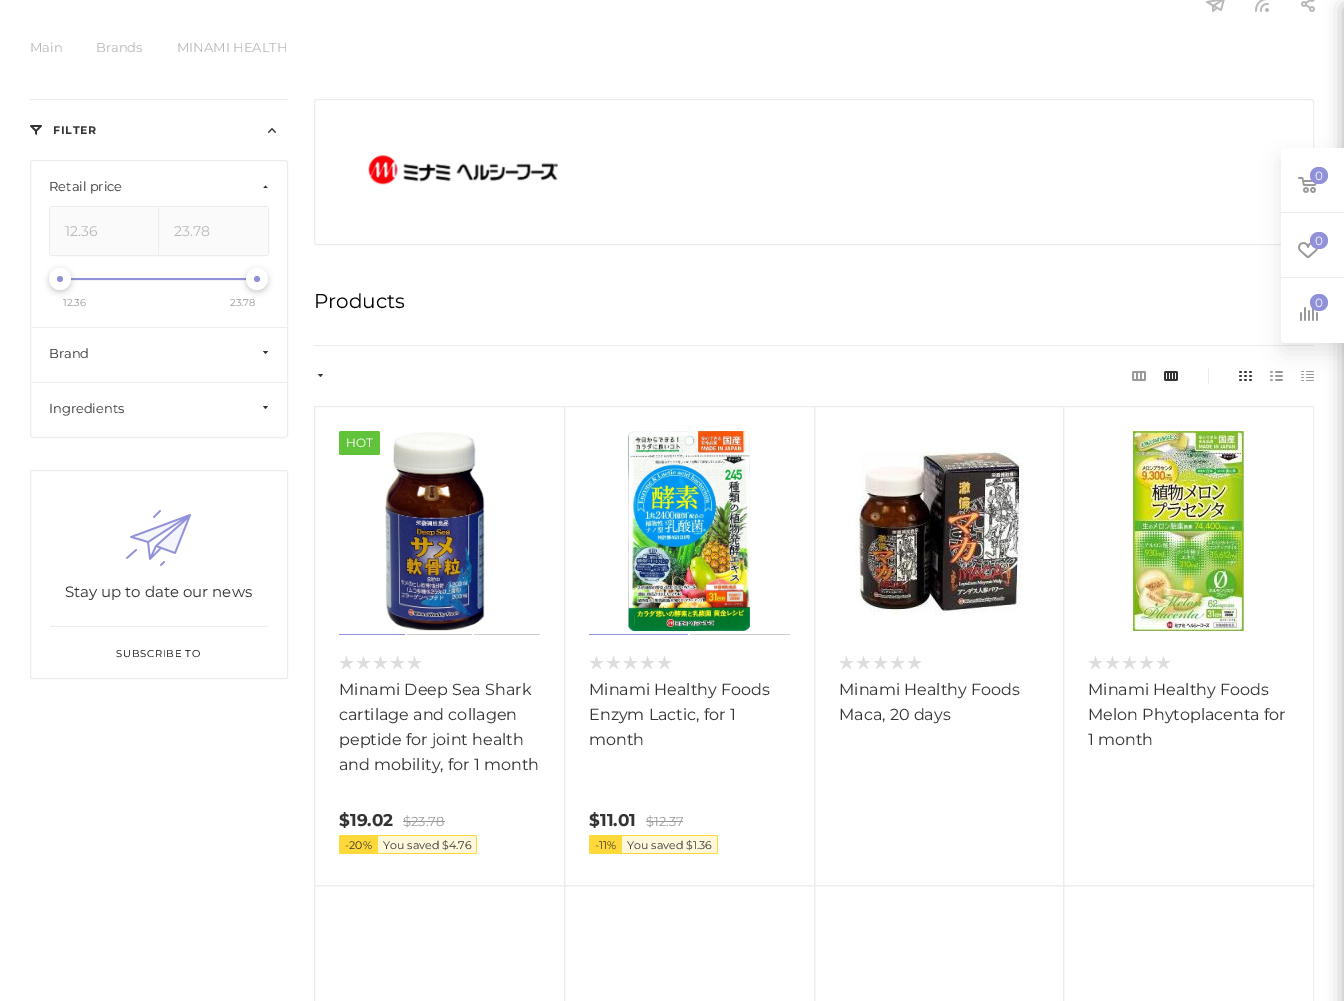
%!PS-Adobe-3.0
%%BoundingBox: 0 0 1344 1001
%%LanguageLevel: 3
%%Pages: 1
%%EndComments
%%BeginProlog
/setalpha { dup .setfillconstantalpha .setstrokeconstantalpha } def
/rrect { 5 dict begin { /r /h /w /y /x } { exch def } forall
  x r add y moveto x w add y 2 copy h add r arct x w add y h add x 1 index r arct
  x y h add x y r arct x y 2 copy exch w add exch r arct closepath end } def
/softshadow { 12 dict begin { /a /b /q /h /w /y /x } { exch def } forall gsave /was 0 def
  9 -2 -9 { dup b mul 4 div /e exch def 1 sub .425 mul 2.718 exch exp 1 add a .99 .min exch div /now exch def
    1 1 now sub 1 was sub div sub setalpha /was now def
    w h .min e 2 mul add 0 gt { x e sub y e sub w e 2 mul add h e 2 mul add
      q e add b .6 mul add w h .min 2 div e add .min 0 .max rrect fill } if } for grestore end } def
/drawimage { 5 dict begin { /h /w /y /x /name } { exch def } forall
  gsave x y translate w h scale
  w h 8 [w 0 0 h 0 0] name (r) file false 3 colorimage grestore end } def
%%EndProlog
%%BeginSetup
<< /PageSize [1344 1001] /PageUsesTransparency true >> setpagedevice
%%EndSetup
%%Page: 1 1
0 .pushpdf14devicefilter
0 1001 translate 1 -1 scale
4 setmiterlimit
1 setgray
0 0 1344 1001 rectfill
(images/1.raw) 1206 0 19 12 drawimage
(images/2.raw) 1255 0 14 12 drawimage
(images/3.raw) 1301 0 14 12 drawimage
0.925 setgray
30 99 258 1 rectfill
(images/4.raw) 30 125 12 10 drawimage
(images/5.raw) 268 128 8 5 drawimage
30.5 160.5 257 277 2.5 rrect stroke
0.933 setgray
31 327 256 1 rectfill
gsave
263 185 5 3 rectclip
0.2 setgray
newpath 268 188.5 moveto 263 188.5 lineto 265.5 185.5 lineto closepath eofill
grestore
0.925 setgray
49.5 206.5 219 49 2.5 rrect stroke
0.98 setgray
50 207 108 48 rectfill
0.925 setgray
158 207 1 48 rectfill
0.98 setgray
159 207 109 48 rectfill
0.569 0.569 0.851 setrgbcolor
70 278 177 2 rectfill
0.949 setgray
70 280 177 1 rectfill
0 setgray
49 270 22 22 11 3 0.2 softshadow
1 setgray
newpath 60 279 11 0 360 arc closepath fill
0.569 0.569 0.851 setrgbcolor
newpath 60 279 3 0 360 arc closepath fill
0 setgray
246 270 22 22 11 3 0.2 softshadow
1 setgray
newpath 257 279 11 0 360 arc closepath fill
0.569 0.569 0.851 setrgbcolor
newpath 257 279 3 0 360 arc closepath fill
0.933 setgray
31 382 256 1 rectfill
0.2 setgray
newpath 263 351 moveto 268 351 lineto 265.5 354 lineto closepath eofill
0.933 setgray
31 437 256 1 rectfill
0.2 setgray
newpath 263 406 moveto 268 406 lineto 265.5 409 lineto closepath eofill
0.925 setgray
30.5 470.5 257 208 1.5 rrect stroke
(images/6.raw) 126 510 65 56 drawimage
50 626 218 1 rectfill
314.5 99.5 999 145 2.5 rrect stroke
(images/7.raw) 368 154 190 31 drawimage
314 345 1000 1 rectfill
0.2 setgray
newpath 318 374 moveto 323 374 lineto 320.5 377 lineto closepath eofill
(images/8.raw) 1132 371 14 10 drawimage
(images/9.raw) 1164 371 14 10 drawimage
0.925 setgray
1208 368 1 16 rectfill
(images/10.raw) 1239 371 13 10 drawimage
(images/11.raw) 1270 371 13 10 drawimage
(images/12.raw) 1301 371 13 10 drawimage
314.5 406.5 250 479 rectstroke
(images/13.raw) 385 432 100 199 drawimage
0.569 0.569 0.851 setrgbcolor
339 634 66 1 rectfill
0.804 setgray
407 634 65 1 rectfill
474 634 66 1 rectfill
0.376 0.765 0.224 setrgbcolor
339 431 41 24 2 rrect fill
(images/14.raw) 339 656 15 13 drawimage
(images/14.raw) 356 656 15 13 drawimage
(images/14.raw) 373 656 15 13 drawimage
(images/14.raw) 390 656 15 13 drawimage
(images/14.raw) 407 656 15 13 drawimage
0.6 setgray
403 821 42 1 rectfill
1 0.847 0.227 setrgbcolor
339 835 138 19 2 rrect fill
1 0.973 0.859 setrgbcolor
378 836 98 17 1 rrect fill
0.925 setgray
564.5 406.5 250 479 rectstroke
(images/15.raw) 628 431 122 200 drawimage
0.569 0.569 0.851 setrgbcolor
589 634 99 1 rectfill
0.804 setgray
690 634 100 1 rectfill
(images/14.raw) 589 656 15 13 drawimage
(images/14.raw) 606 656 15 13 drawimage
(images/14.raw) 623 656 15 13 drawimage
(images/14.raw) 640 656 15 13 drawimage
(images/14.raw) 657 656 15 13 drawimage
0.6 setgray
646 821 8 1 rectfill
654 821 29 1 rectfill
1 0.847 0.227 setrgbcolor
589 835 129 19 2 rrect fill
1 0.973 0.859 setrgbcolor
622 836 95 17 1 rrect fill
0.925 setgray
814.5 406.5 249 479 rectstroke
(images/16.raw) 855 447 168 168 drawimage
(images/14.raw) 839 656 15 13 drawimage
(images/14.raw) 856 656 15 13 drawimage
(images/14.raw) 873 656 15 13 drawimage
(images/14.raw) 890 656 15 13 drawimage
(images/14.raw) 907 656 15 13 drawimage
1063.5 406.5 250 479 rectstroke
(images/17.raw) 1133 431 111 200 drawimage
(images/14.raw) 1088 656 15 13 drawimage
(images/14.raw) 1105 656 15 13 drawimage
(images/14.raw) 1122 656 15 13 drawimage
(images/14.raw) 1139 656 15 13 drawimage
(images/14.raw) 1156 656 15 13 drawimage
314.5 885.5 250 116 rectstroke
564.5 885.5 250 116 rectstroke
814.5 885.5 249 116 rectstroke
1063.5 885.5 250 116 rectstroke
0.173 setgray
1344 6 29 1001 2 9 0.4 softshadow
0 setgray
1281 158 63 195 4 10 0.1 softshadow
1 setgray
newpath 1285 148 moveto 1344 148 lineto 1344 343 lineto 1285 343 lineto 1283 343 1281 341 1281 339 curveto 1281 152 lineto 1281 150 1283 148 1285 148 curveto closepath fill
0.925 setgray
1281 212 63 1 rectfill
(images/18.raw) 1298 177 19 16 drawimage
0.569 0.569 0.851 setrgbcolor
1310 167 18 17 8.5 rrect fill
0.925 setgray
1281 277 63 1 rectfill
(images/19.raw) 1298 242 20 16 drawimage
0.569 0.569 0.851 setrgbcolor
1310 232 18 17 8.5 rrect fill
(images/20.raw) 1300 307 18 14 drawimage
1310 294 18 17 8.5 rrect fill
/Montserrat-Regular [13 0 0 -13 0 0] selectfont
0.722 setgray
30 52 moveto (Main) show
96 52 moveto (Brands) show
177 52 moveto (MINAMI HEALTH) show
/Montserrat-Bold [11 0 0 -11 0 0] selectfont
0.2 setgray
53 134 moveto 0.75 0 (FILTER) ashow
/Montserrat-Regular [13 0 0 -13 0 0] selectfont
49 191 moveto (Retail price) show
/Montserrat-Regular [14 0 0 -14 0 0] selectfont
0.722 setgray
65 236 moveto (12.36) show
174 236 moveto (23.78) show
/Montserrat-Regular [10 0 0 -10 0 0] selectfont
0.6 setgray
63 306 moveto (12.36) show
230 306 moveto (23.78) show
/Montserrat-Regular [13 0 0 -13 0 0] selectfont
0.2 setgray
49 358 moveto (Brand) show
49 413 moveto (Ingredients) show
/Montserrat-Regular [15 0 0 -15 0 0] selectfont
0.176 setgray
65 597 moveto (Stay up to date our news) show
/Montserrat-Regular [10 0 0 -10 0 0] selectfont
0 setgray
116 657 moveto 0.75 0 (SUBSCRIBE TO) ashow
/Montserrat-Regular [20 0 0 -20 0 0] selectfont
314 308 moveto (Products) show
/Montserrat-Regular [12 0 0 -12 0 0] selectfont
1 setgray
346 447 moveto (HOT) show
/Montserrat-Regular [16 0 0 -16 0 0] selectfont
0.2 setgray
339 695 moveto (Minami Deep Sea Shark) show
339 720 moveto (cartilage and collagen) show
339 745 moveto (peptide for joint health) show
339 770 moveto (and mobility, for 1 month) show
/Montserrat-Bold [17 0 0 -17 0 0] selectfont
339 826 moveto ($19.02) show
/Montserrat-Regular [13 0 0 -13 0 0] selectfont
0.6 setgray
403 826 moveto ($23.78) show
/Montserrat-Regular [11 0 0 -11 0 0] selectfont
0.2 setgray
345 849 moveto (-20%) show
383 849 moveto (You saved $4.76) show
/Montserrat-Regular [16 0 0 -16 0 0] selectfont
589 695 moveto (Minami Healthy Foods) show
589 720 moveto (Enzym Lactic, for 1) show
589 745 moveto (month) show
/Montserrat-Bold [17 0 0 -17 0 0] selectfont
589 826 moveto ($11.01) show
/Montserrat-Regular [13 0 0 -13 0 0] selectfont
0.6 setgray
646 826 moveto ($) show
654 826 moveto (12.37) show
/Montserrat-Regular [11 0 0 -11 0 0] selectfont
0.2 setgray
595 849 moveto (-11%) show
627 849 moveto (You saved $1.36) show
/Montserrat-Regular [16 0 0 -16 0 0] selectfont
839 695 moveto (Minami Healthy Foods) show
839 720 moveto (Maca, 20 days) show
1088 695 moveto (Minami Healthy Foods) show
1088 720 moveto (Melon Phytoplacenta for) show
1088 745 moveto (1 month) show
/Montserrat-Regular [12 0 0 -12 0 0] selectfont
1 setgray
1315 180 moveto (0) show
1315 245 moveto (0) show
1315 307 moveto (0) show
.poppdf14devicefilter showpage
%%EOF
